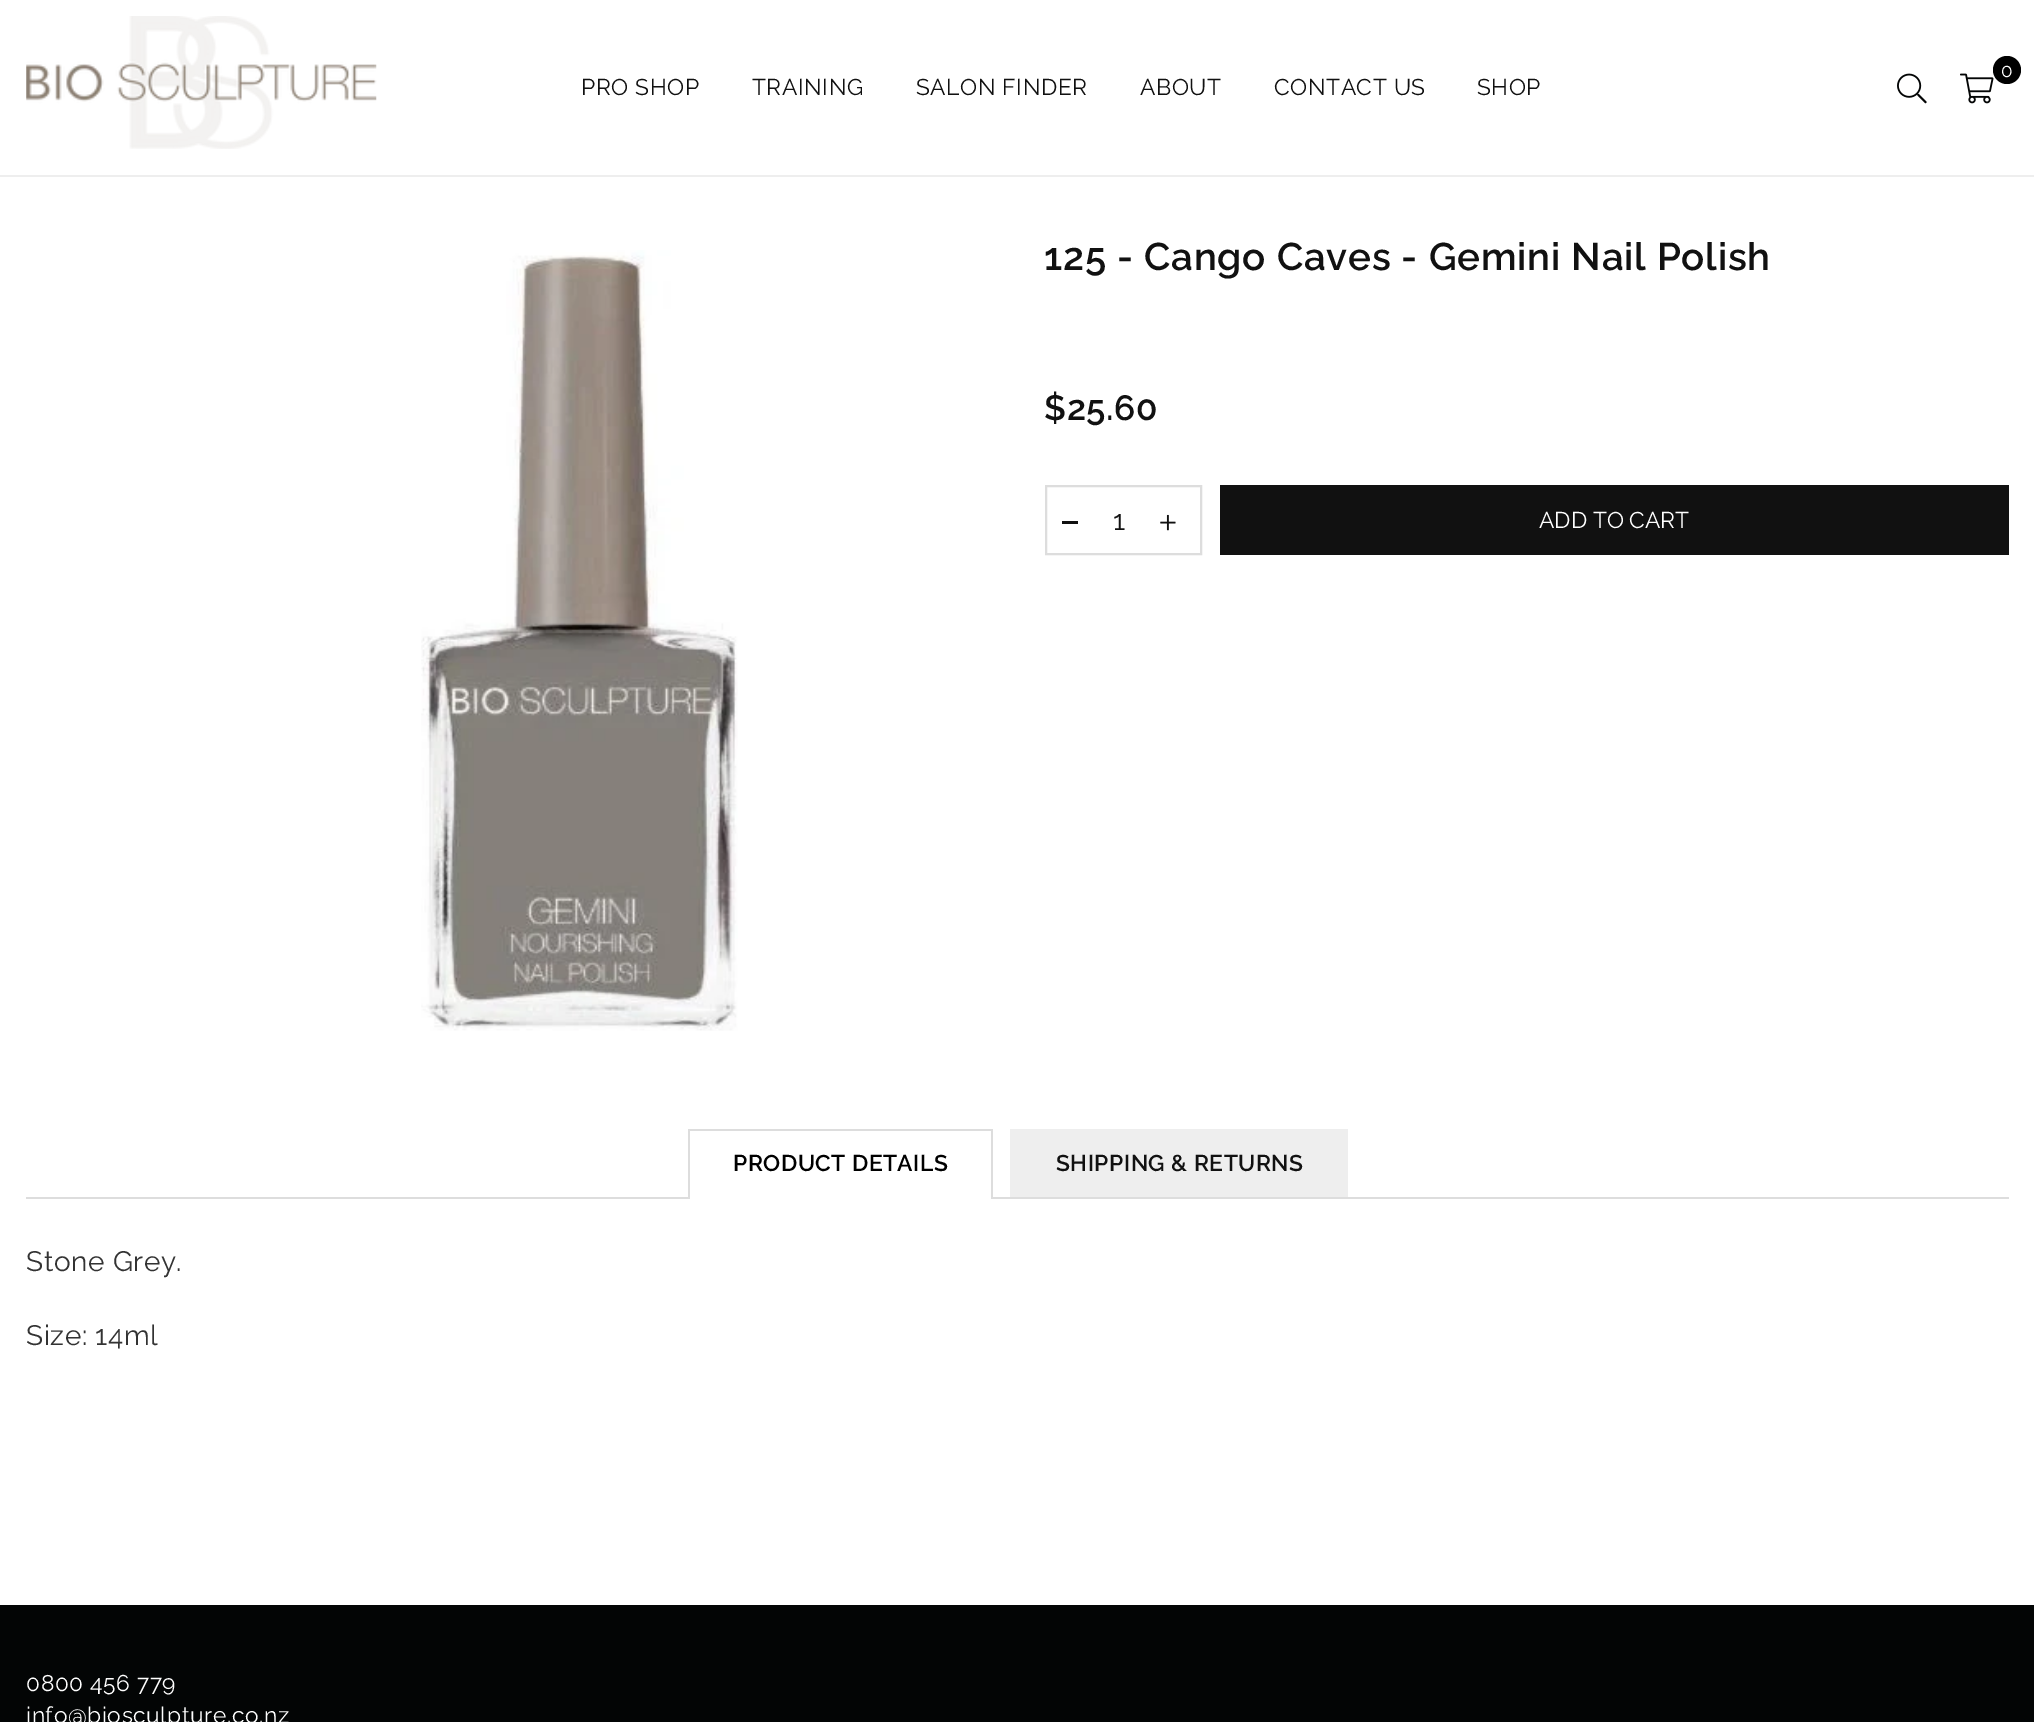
%!PS-Adobe-3.0
%%BoundingBox: 0 0 2034 1722
%%LanguageLevel: 3
%%Pages: 1
%%EndComments
%%BeginProlog
/drawimage { 5 dict begin { /h /w /y /x /name } { exch def } forall
  gsave x y translate w h scale
  w h 8 [w 0 0 h 0 0] name (r) file false 3 colorimage grestore end } def
%%EndProlog
%%BeginSetup
<< /PageSize [2034 1722] >> setpagedevice
%%EndSetup
%%Page: 1 1
0 1722 translate 1 -1 scale
4 setmiterlimit
1 setgray
0 0 2034 1722 rectfill
0.933 setgray
0 175 2034 2 rectfill
(images/1.raw) 26 16 351 133 drawimage
(images/2.raw) 1960 73 34 31 drawimage
0 setgray
newpath 2007 70 14 0 360 arc closepath fill
(images/3.raw) 1897 73 30 31 drawimage
(images/4.raw) 421 250 317 781 drawimage
0.867 setgray
2 setlinewidth
1046 486 155 68 rectstroke
0.067 setgray
1062 521 16 3 rectfill
(images/5.raw) 1160 514 16 17 drawimage
1220 485 789 70 rectfill
0.867 setgray
26 1197 1983 2 rectfill
688 1129 304 2 rectfill
991 1129 2 68 rectfill
688 1129 2 68 rectfill
1 setgray
690 1197 301 2 rectfill
0.933 setgray
1010 1129 338 68 rectfill
0.012 0.02 0.02 setrgbcolor
0 1605 2034 117 rectfill
/Raleway-Regular [19 0 0 -19 0 0] selectfont
1 setgray
2001 77 moveto 0.6 0 (0) ashow
/Raleway-Regular [22.75 0 0 -22.75 0 0] selectfont
0.067 setgray
581 95 moveto 0.6 0 (PRO SHOP) ashow
752 95 moveto 0.6 0 (TRAINING) ashow
916 95 moveto 0.6 0 (SALON FINDER) ashow
1140 95 moveto 0.6 0 (ABOUT) ashow
1274 95 moveto 0.6 0 (CONTACT US) ashow
1477 95 moveto 0.6 0 (SHOP) ashow
/Raleway-SemiBold [38.5 0 0 -38.5 0 0] selectfont
1044 270 moveto 0.75 0 (125 - Cango Caves - Gemini Nail Polish) ashow
/Raleway-SemiBold [35 0 0 -35 0 0] selectfont
1044 420 moveto 0.6 0 ($25.60) ashow
/Raleway-Regular [28 0 0 -28 0 0] selectfont
1113 530 moveto (1) show
/Raleway-Regular [22.75 0 0 -22.75 0 0] selectfont
1 setgray
1539 528 moveto (ADD TO CART) show
/Raleway-SemiBold [22.75 0 0 -22.75 0 0] selectfont
0 setgray
733 1171 moveto 0.5 0 (PRODUCT DETAILS) ashow
0.067 setgray
1056 1171 moveto 0.5 0 (SHIPPING & RETURNS) ashow
/Raleway-Regular [28 0 0 -28 0 0] selectfont
0.2 setgray
26 1271 moveto 0.6 0 (Stone Grey.) ashow
26 1345 moveto 0.6 0 (Size: 14ml) ashow
/Raleway-Regular [22.75 0 0 -22.75 0 0] selectfont
1 setgray
26 1691 moveto 0.6 0 (0800 456 779) ashow
26 1723 moveto 0.6 0 (info@biosculpture.co.nz) ashow
showpage
%%EOF
